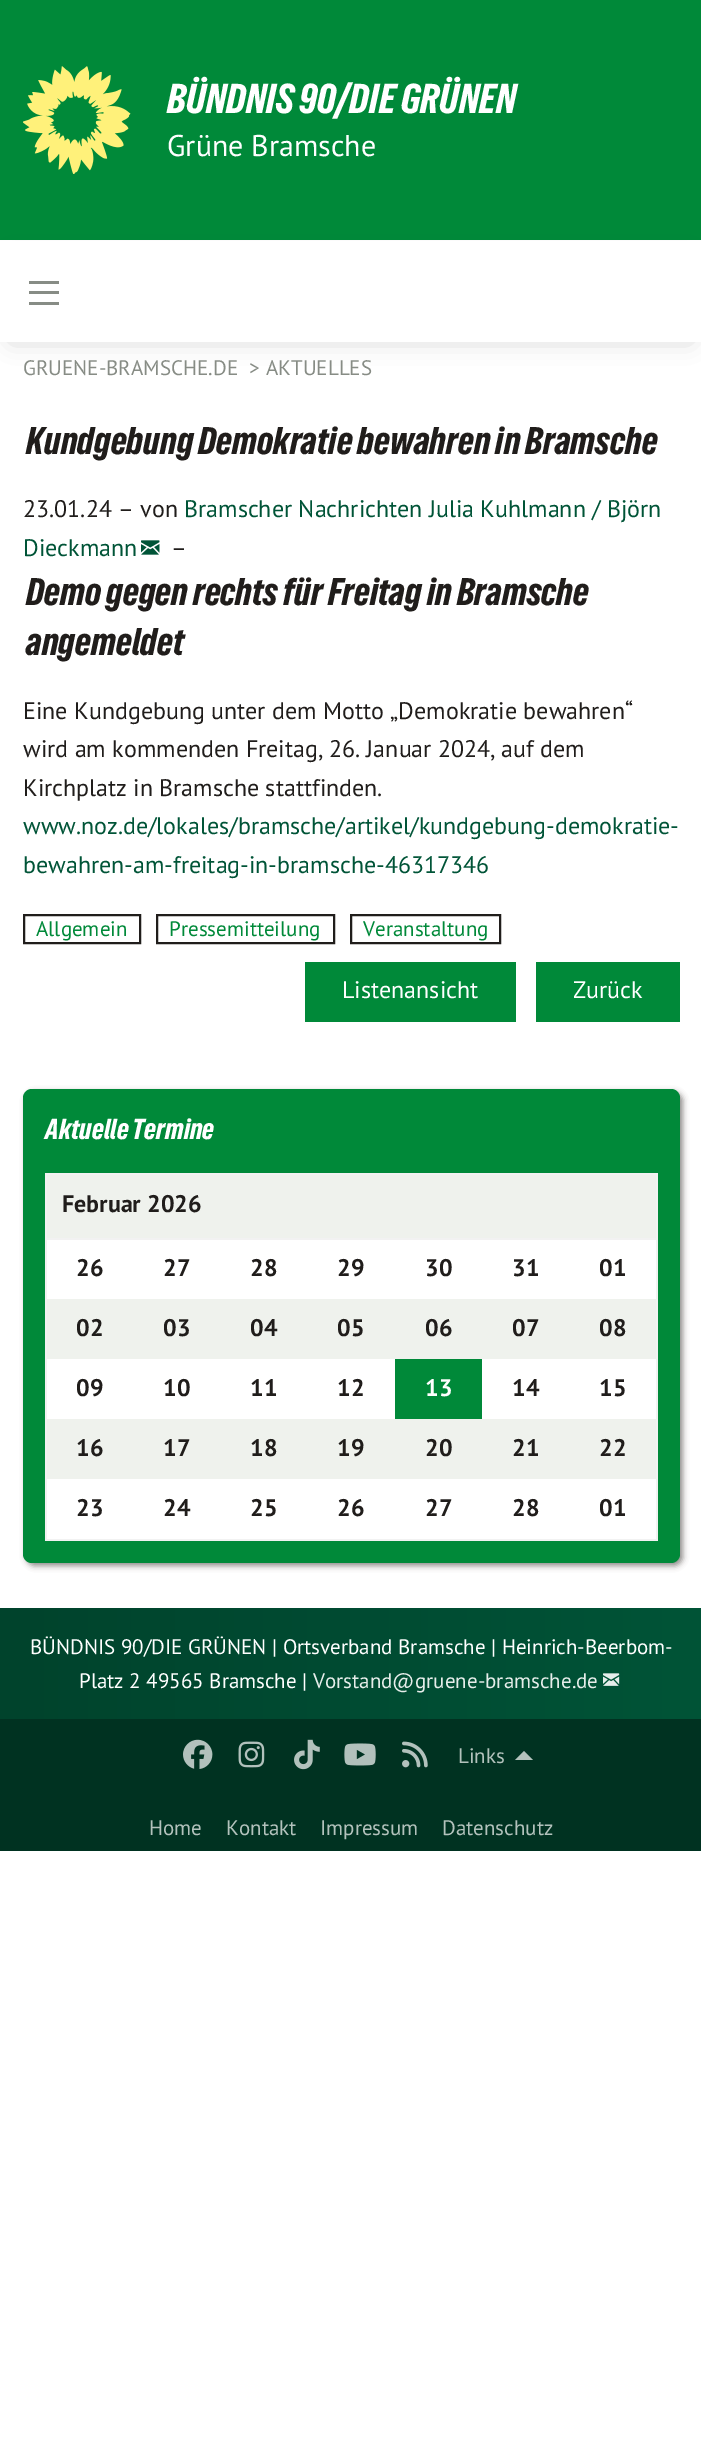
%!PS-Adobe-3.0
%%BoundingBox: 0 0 701 2461
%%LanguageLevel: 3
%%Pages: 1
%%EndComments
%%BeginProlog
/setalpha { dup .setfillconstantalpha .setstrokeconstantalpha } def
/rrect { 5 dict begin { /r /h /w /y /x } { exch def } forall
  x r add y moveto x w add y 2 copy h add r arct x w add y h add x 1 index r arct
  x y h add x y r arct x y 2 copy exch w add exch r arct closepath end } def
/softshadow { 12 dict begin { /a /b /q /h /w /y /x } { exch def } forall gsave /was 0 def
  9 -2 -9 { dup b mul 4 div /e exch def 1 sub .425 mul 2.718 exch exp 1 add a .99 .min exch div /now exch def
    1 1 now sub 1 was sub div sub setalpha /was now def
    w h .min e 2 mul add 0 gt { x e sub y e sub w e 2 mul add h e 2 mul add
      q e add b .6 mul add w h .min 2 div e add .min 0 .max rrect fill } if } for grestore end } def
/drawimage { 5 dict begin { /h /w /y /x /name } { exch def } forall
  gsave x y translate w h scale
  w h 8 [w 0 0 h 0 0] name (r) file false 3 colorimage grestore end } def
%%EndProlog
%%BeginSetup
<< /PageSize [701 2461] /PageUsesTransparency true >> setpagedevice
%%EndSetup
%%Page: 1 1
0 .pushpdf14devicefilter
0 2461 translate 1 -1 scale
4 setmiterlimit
1 setgray
0 0 701 2461 rectfill
0 0.537 0.224 setrgbcolor
0 0 701 240 rectfill
(images/1.raw) 23 66 108 108 drawimage
0 setgray
12 261 678 78 0 12 0.2 softshadow
1 setgray
0 241 701 101 rectfill
0.529 0.549 0.522 setrgbcolor
29 302 30 3 rectfill
29 291 30 3 rectfill
29 281 30 3 rectfill
(images/2.raw) 141 540 19 15 drawimage
0.125 0.114 0.106 setrgbcolor
2 setlinewidth
24 915 116 28 rectstroke
157 915 177 28 rectstroke
351 915 149 28 rectstroke
0 0.537 0.224 setrgbcolor
305 962 211 60 rectfill
536 962 144 60 rectfill
0.125 0.114 0.106 setrgbcolor
26 1092 657 474 9 3 0.5 softshadow
0 0.537 0.224 setrgbcolor
23 1089 657 474 9 rrect fill
0.937 0.949 0.929 setrgbcolor
47 1175 609 63 rectfill
0.949 setgray
45 1173 612 2 rectfill
45 1238 612 2 rectfill
656 1238 2 303 rectfill
656 1173 2 66 rectfill
45 1539 612 2 rectfill
45 1238 2 303 rectfill
45 1173 2 66 rectfill
1 setgray
47 1240 609 299 rectfill
0.937 0.949 0.929 setrgbcolor
47 1299 609 60 rectfill
0 0.537 0.224 setrgbcolor
395 1359 87 60 rectfill
0.937 0.949 0.929 setrgbcolor
47 1419 609 60 rectfill
gsave newpath 0 1608 moveto 701 1608 lineto 701 1719 lineto 0 1719 lineto closepath clip newpath
<< /ShadingType 2 /ColorSpace /DeviceRGB /Coords [0 1664 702 1664] /Extend [true true] /Function << /FunctionType 2 /Domain [0 1] /C0 [0 0.263 0.173] /C1 [0 0.329 0.216] /N 1 >> >> shfill grestore
(images/3.raw) 603 1673 17 13 drawimage
0 0.196 0.129 setrgbcolor
0 1719 701 132 rectfill
(images/4.raw) 183 1739 30 30 drawimage
(images/5.raw) 238 1741 27 27 drawimage
(images/6.raw) 294 1739 26 31 drawimage
(images/7.raw) 344 1743 32 23 drawimage
(images/8.raw) 402 1741 26 27 drawimage
0.702 0.761 0.737 setrgbcolor
newpath 533 1760 moveto 515 1760 lineto 524 1751 lineto closepath fill
/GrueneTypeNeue-Regular [39 0 0 -39 0 0] selectfont
1 setgray
167 113 moveto (BÜNDNIS 90/DIE GRÜNEN) show
/PTSans-Regular [30 0 0 -30 0 0] selectfont
167 156 moveto (Grüne Bramsche) show
/PTSans-Regular [21 0 0 -21 0 0] selectfont
0.529 0.549 0.522 setrgbcolor
23 375 moveto (GRUENE-BRAMSCHE.DE) show
249 375 moveto (>) show
266 375 moveto (AKTUELLES) show
/GrueneTypeNeue-Regular [36 0 0 -36 0 0] selectfont
0.125 0.114 0.106 setrgbcolor
26 454 moveto (Kundgebung Demokratie bewahren in Bramsche) show
/PTSans-Regular [24 0 0 -24 0 0] selectfont
23 517 moveto (23.01.24 – von) show
0 0.329 0.216 setrgbcolor
184 517 moveto (Bramscher Nachrichten Julia Kuhlmann / Björn) show
23 556 moveto (Dieckmann) show
0.125 0.114 0.106 setrgbcolor
171 556 moveto (–) show
/GrueneTypeNeue-Regular [36 0 0 -36 0 0] selectfont
26 605 moveto (Demo gegen rechts für Freitag in Bramsche) show
26 655 moveto (angemeldet) show
/PTSans-Regular [24 0 0 -24 0 0] selectfont
23 719 moveto (Eine Kundgebung unter dem Motto „Demokratie bewahren“) show
23 757 moveto (wird am kommenden Freitag, 26. Januar 2024, auf dem) show
23 796 moveto (Kirchplatz in Bramsche stattfinden.) show
0 0.329 0.216 setrgbcolor
23 834 moveto (www.noz.de/lokales/bramsche/artikel/kundgebung-demokratie-) show
23 873 moveto (bewahren-am-freitag-in-bramsche-46317346) show
/PTSans-Regular [21 0 0 -21 0 0] selectfont
0 0.537 0.224 setrgbcolor
36 936 moveto (Allgemein) show
169 936 moveto (Pressemitteilung) show
363 936 moveto (Veranstaltung) show
/PTSans-Regular [24 0 0 -24 0 0] selectfont
1 setgray
342 998 moveto (Listenansicht) show
573 998 moveto (Zurück) show
/GrueneTypeNeue-Regular [27 0 0 -27 0 0] selectfont
45 1139 moveto (Aktuelle Termine) show
/PTSans-Bold [24 0 0 -24 0 0] selectfont
0.125 0.114 0.106 setrgbcolor
62 1212 moveto (Februar 2026) show
76 1276 moveto (26) show
163 1276 moveto (27) show
250 1276 moveto (28) show
337 1276 moveto (29) show
425 1276 moveto (30) show
512 1276 moveto (31) show
599 1276 moveto (01) show
76 1336 moveto (02) show
163 1336 moveto (03) show
250 1336 moveto (04) show
337 1336 moveto (05) show
425 1336 moveto (06) show
512 1336 moveto (07) show
599 1336 moveto (08) show
76 1396 moveto (09) show
163 1396 moveto (10) show
250 1396 moveto (11) show
337 1396 moveto (12) show
1 setgray
425 1396 moveto (13) show
0.125 0.114 0.106 setrgbcolor
512 1396 moveto (14) show
599 1396 moveto (15) show
76 1456 moveto (16) show
163 1456 moveto (17) show
250 1456 moveto (18) show
337 1456 moveto (19) show
425 1456 moveto (20) show
512 1456 moveto (21) show
599 1456 moveto (22) show
76 1516 moveto (23) show
163 1516 moveto (24) show
250 1516 moveto (25) show
337 1516 moveto (26) show
425 1516 moveto (27) show
512 1516 moveto (28) show
599 1516 moveto (01) show
/PTSans-Regular [21 0 0 -21 0 0] selectfont
1 setgray
30 1654 moveto (BÜNDNIS 90/DIE GRÜNEN | Ortsverband Bramsche | Heinrich-Beerbom-) show
79 1688 moveto (Platz 2 49565 Bramsche |) show
0.902 0.929 0.918 setrgbcolor
313 1688 moveto (Vorstand@) show
415 1688 moveto (gruene-bramsche.de) show
0.702 0.761 0.737 setrgbcolor
458 1763 moveto (Links) show
149 1835 moveto (Home) show
226 1835 moveto (Kontakt) show
320 1835 moveto (Impressum) show
442 1835 moveto (Datenschutz) show
.poppdf14devicefilter showpage
%%EOF
